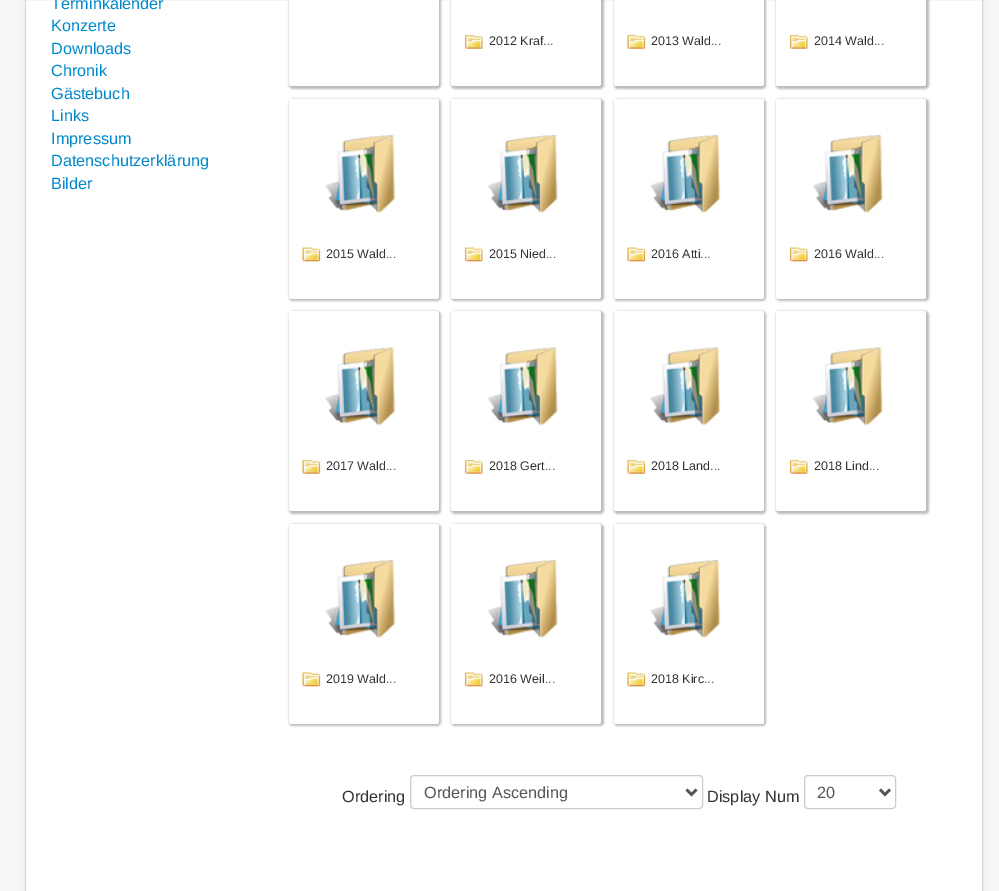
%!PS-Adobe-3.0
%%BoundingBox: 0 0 999 891
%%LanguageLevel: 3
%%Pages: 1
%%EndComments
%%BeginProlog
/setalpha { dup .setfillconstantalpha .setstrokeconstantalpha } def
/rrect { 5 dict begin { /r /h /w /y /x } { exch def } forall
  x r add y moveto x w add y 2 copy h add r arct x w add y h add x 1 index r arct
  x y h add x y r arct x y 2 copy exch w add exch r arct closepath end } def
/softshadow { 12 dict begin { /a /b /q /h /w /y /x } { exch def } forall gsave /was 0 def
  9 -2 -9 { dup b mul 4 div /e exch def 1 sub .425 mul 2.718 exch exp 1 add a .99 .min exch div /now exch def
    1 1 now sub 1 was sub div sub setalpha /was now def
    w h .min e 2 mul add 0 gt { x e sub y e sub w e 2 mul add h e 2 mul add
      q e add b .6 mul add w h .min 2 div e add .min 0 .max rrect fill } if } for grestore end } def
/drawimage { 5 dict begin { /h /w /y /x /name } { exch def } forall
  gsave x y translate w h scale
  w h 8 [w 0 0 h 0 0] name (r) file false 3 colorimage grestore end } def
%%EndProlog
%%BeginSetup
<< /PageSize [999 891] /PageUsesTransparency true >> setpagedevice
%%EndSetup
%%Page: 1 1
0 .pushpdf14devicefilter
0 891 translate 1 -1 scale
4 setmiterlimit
0.957 0.965 0.969 setrgbcolor
0 0 999 891 rectfill
0 setgray
25 -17 958 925 5 4 0.05 softshadow
1 setgray
newpath 25.5 -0.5 moveto 982.5 -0.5 lineto 982.5 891.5 lineto 25.5 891.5 lineto closepath gsave fill grestore
0.851 setgray
stroke
0.471 setgray
289 -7 152 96 4 1 0.5 softshadow
1 setgray
289 -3 150 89 2.5 rrect fill
0.471 setgray
451 -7 153 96 4 1 0.5 softshadow
1 setgray
451 -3 150 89 2.5 rrect fill
(images/1.raw) 539 0 5 1 drawimage
(images/2.raw) 464 34 19 15 drawimage
0.471 setgray
614 -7 152 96 4 1 0.5 softshadow
1 setgray
614 -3 150 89 2.5 rrect fill
(images/3.raw) 702 0 4 1 drawimage
(images/4.raw) 627 34 19 15 drawimage
0.471 setgray
776 -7 153 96 4 1 0.5 softshadow
1 setgray
776 -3 150 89 2.5 rrect fill
(images/1.raw) 864 0 5 1 drawimage
(images/2.raw) 789 34 19 15 drawimage
0.471 setgray
289 99 152 202 4 1 0.5 softshadow
1 setgray
289 99 150 200 2.5 rrect fill
(images/5.raw) 325 134 71 79 drawimage
(images/6.raw) 302 247 19 15 drawimage
0.471 setgray
451 99 153 202 4 1 0.5 softshadow
1 setgray
451 99 150 200 2.5 rrect fill
(images/7.raw) 487 134 71 79 drawimage
(images/8.raw) 464 247 19 15 drawimage
0.471 setgray
614 99 152 202 4 1 0.5 softshadow
1 setgray
614 99 150 200 2.5 rrect fill
(images/5.raw) 650 134 71 79 drawimage
(images/6.raw) 627 247 19 15 drawimage
0.471 setgray
776 99 153 202 4 1 0.5 softshadow
1 setgray
776 99 150 200 2.5 rrect fill
(images/9.raw) 812 134 71 79 drawimage
(images/8.raw) 789 247 19 15 drawimage
0.471 setgray
289 311 152 203 4 1 0.5 softshadow
1 setgray
289 311 150 200 2.5 rrect fill
(images/10.raw) 325 347 71 79 drawimage
(images/4.raw) 302 459 19 15 drawimage
0.471 setgray
451 311 153 203 4 1 0.5 softshadow
1 setgray
451 311 150 200 2.5 rrect fill
(images/11.raw) 487 347 71 79 drawimage
(images/2.raw) 464 459 19 15 drawimage
0.471 setgray
614 311 152 203 4 1 0.5 softshadow
1 setgray
614 311 150 200 2.5 rrect fill
(images/10.raw) 650 347 71 79 drawimage
(images/4.raw) 627 459 19 15 drawimage
0.471 setgray
776 311 153 203 4 1 0.5 softshadow
1 setgray
776 311 150 200 2.5 rrect fill
(images/12.raw) 812 347 71 79 drawimage
(images/2.raw) 789 459 19 15 drawimage
0.471 setgray
289 524 152 202 4 1 0.5 softshadow
1 setgray
289 524 150 200 2.5 rrect fill
(images/5.raw) 325 559 71 79 drawimage
(images/6.raw) 302 672 19 15 drawimage
0.471 setgray
451 524 153 202 4 1 0.5 softshadow
1 setgray
451 524 150 200 2.5 rrect fill
(images/7.raw) 487 559 71 79 drawimage
(images/8.raw) 464 672 19 15 drawimage
0.471 setgray
614 524 152 202 4 1 0.5 softshadow
1 setgray
614 524 150 200 2.5 rrect fill
(images/5.raw) 650 559 71 79 drawimage
(images/6.raw) 627 672 19 15 drawimage
0.8 setgray
410.5 775.5 292 33 3.5 rrect stroke
0.333 setgray
2.5 setlinewidth
newpath 686.5 789.5 moveto 691.5 794.5 lineto 696.5 789.5 lineto stroke
0.8 setgray
1 setlinewidth
804.5 775.5 91 33 3.5 rrect stroke
0.333 setgray
2.5 setlinewidth
newpath 880 789.5 moveto 885 794.5 lineto 890 789.5 lineto stroke
/LiberationSans-Regular [16.25 0 0 -16.25 0 0] selectfont
0 0.533 0.8 setrgbcolor
51 9 moveto (Terminkalender) show
51 31 moveto (Konzerte) show
51 54 moveto (Downloads) show
51 76 moveto (Chronik) show
51 99 moveto (Gästebuch) show
51 121 moveto (Links) show
51 144 moveto (Impressum) show
51 166 moveto (Datenschutzerklärung) show
51 189 moveto (Bilder) show
/LiberationSans-Regular [12.5 0 0 -12.5 0 0] selectfont
0.2 setgray
489 45 moveto (2012 Kraf...) show
651 45 moveto (2013 Wald...) show
814 45 moveto (2014 Wald...) show
326 258 moveto (2015 Wald...) show
489 258 moveto (2015 Nied...) show
651 258 moveto (2016 Atti...) show
814 258 moveto (2016 Wald...) show
326 470 moveto (2017 Wald...) show
489 470 moveto (2018 Gert...) show
651 470 moveto (2018 Land...) show
814 470 moveto (2018 Lind...) show
326 683 moveto (2019 Wald...) show
489 683 moveto (2016 Weil...) show
651 683 moveto (2018 Kirc...) show
/LiberationSans-Regular [16.25 0 0 -16.25 0 0] selectfont
342 802 moveto (Ordering) show
0.333 setgray
424 798 moveto (Ordering Ascending) show
0.2 setgray
707 802 moveto (Display Num) show
0.333 setgray
817 798 moveto (20) show
.poppdf14devicefilter showpage
%%EOF
